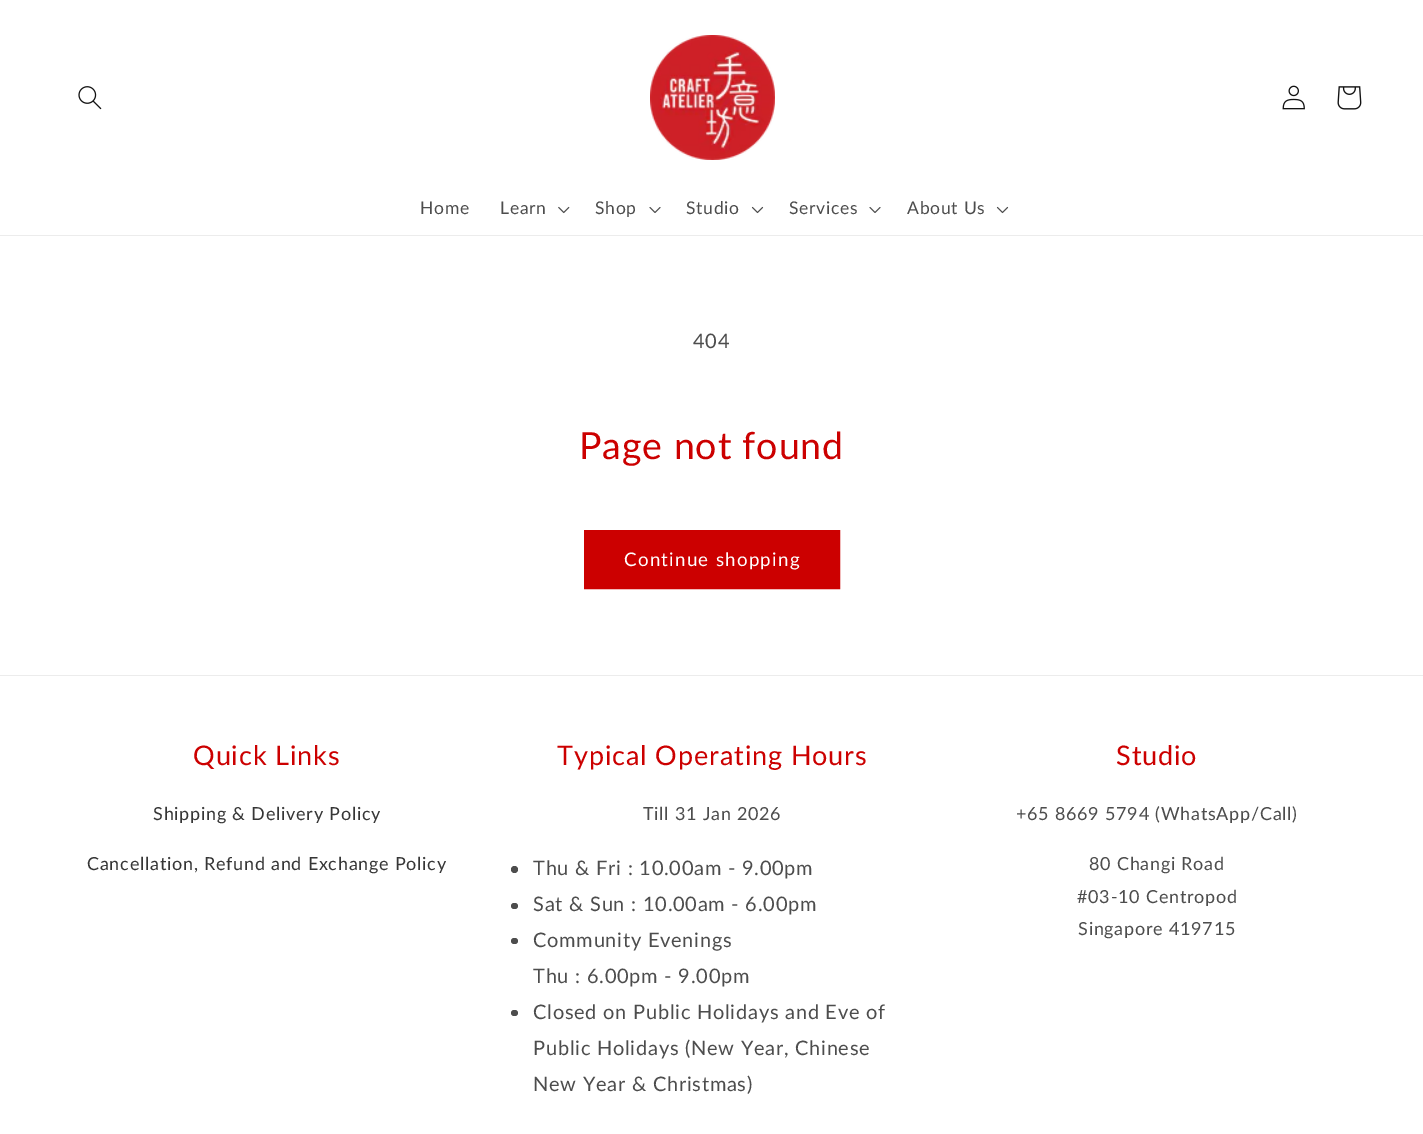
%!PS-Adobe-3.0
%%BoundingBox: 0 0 1423 1134
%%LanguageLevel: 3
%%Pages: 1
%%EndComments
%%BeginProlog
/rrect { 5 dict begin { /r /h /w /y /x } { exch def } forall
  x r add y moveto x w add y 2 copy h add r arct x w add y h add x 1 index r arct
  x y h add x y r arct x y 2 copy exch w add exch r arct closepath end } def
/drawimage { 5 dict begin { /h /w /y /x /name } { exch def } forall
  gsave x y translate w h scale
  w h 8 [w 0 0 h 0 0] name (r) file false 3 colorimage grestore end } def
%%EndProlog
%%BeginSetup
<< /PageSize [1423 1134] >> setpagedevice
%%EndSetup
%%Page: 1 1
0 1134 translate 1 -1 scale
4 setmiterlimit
1 setgray
0 0 1423 1134 rectfill
0.925 setgray
0 235 1423 1 rectfill
(images/1.raw) 78 86 24 24 drawimage
(images/2.raw) 650 35 125 125 drawimage
(images/3.raw) 1282 85 23 25 drawimage
(images/4.raw) 1337 86 25 24 drawimage
(images/5.raw) 558 206 12 8 drawimage
(images/6.raw) 649 207 12 6 drawimage
(images/7.raw) 751 206 13 8 drawimage
(images/6.raw) 869 207 12 6 drawimage
(images/7.raw) 996 206 13 8 drawimage
0.8 0 0 setrgbcolor
584.5 530.5 255 58 rectstroke
585 531 254 57 rectfill
0.925 setgray
0 675 1423 1 rectfill
0.302 setgray
newpath 514.5 869.5 3.5 0 360 arc closepath fill
511 903 7 6 3 rrect fill
511 938 7 6 3 rrect fill
511 1010 7 6 3 rrect fill
/Lato-Regular [17.5 0 0 -17.5 0 0] selectfont
420 214 moveto 0.75 0 (Home) ashow
500 214 moveto 0.75 0 (Learn) ashow
595 214 moveto 0.75 0 (Shop) ashow
686 214 moveto 0.75 0 (Studio) ashow
789 214 moveto 0.75 0 (Services) ashow
907 214 moveto 0.75 0 (About Us) ashow
/Lato-Regular [20 0 0 -20 0 0] selectfont
693 348 moveto 0.75 0 (404) ashow
/Lato-Regular [37.5 0 0 -37.5 0 0] selectfont
0.8 0 0 setrgbcolor
579 459 moveto 0.9 0 (Page not found) ashow
/Lato-Regular [18.75 0 0 -18.75 0 0] selectfont
1 setgray
624 566 moveto 1.25 0 (Continue shopping) ashow
/Lato-Regular [27 0 0 -27 0 0] selectfont
0.8 0 0 setrgbcolor
193 765 moveto 0.9 0 (Quick Links) ashow
/Lato-Regular [18 0 0 -18 0 0] selectfont
0.212 setgray
153 820 moveto 0.75 0 (Shipping & Delivery Policy) ashow
87 870 moveto 0.75 0 (Cancellation, Refund and Exchange Policy) ashow
/Lato-Regular [27 0 0 -27 0 0] selectfont
0.8 0 0 setrgbcolor
557 765 moveto 0.9 0 (Typical Operating Hours) ashow
/Lato-Regular [18 0 0 -18 0 0] selectfont
0.302 setgray
643 820 moveto 0.75 0 (Till 31 Jan 2026) ashow
/Lato-Regular [20 0 0 -20 0 0] selectfont
533 875 moveto 0.75 0 (Thu & Fri : 10.00am - 9.00pm) ashow
533 911 moveto 0.75 0 (Sat & Sun : 10.00am - 6.00pm) ashow
533 947 moveto 0.75 0 (Community Evenings) ashow
533 983 moveto 0.75 0 (Thu : 6.00pm - 9.00pm) ashow
533 1019 moveto 0.75 0 (Closed on Public Holidays and Eve of) ashow
533 1055 moveto 0.75 0 (Public Holidays \(New Year, Chinese) ashow
533 1091 moveto 0.75 0 (New Year & Christmas\)) ashow
/Lato-Regular [27 0 0 -27 0 0] selectfont
0.8 0 0 setrgbcolor
1116 765 moveto 0.9 0 (Studio) ashow
/Lato-Regular [18 0 0 -18 0 0] selectfont
0.302 setgray
1016 820 moveto 0.75 0 (+65 8669 5794 \(WhatsApp/Call\)) ashow
1089 870 moveto 0.75 0 (80 Changi Road) ashow
1077 903 moveto 0.75 0 (#03-10 Centropod) ashow
1078 935 moveto 0.75 0 (Singapore 419715) ashow
showpage
%%EOF
